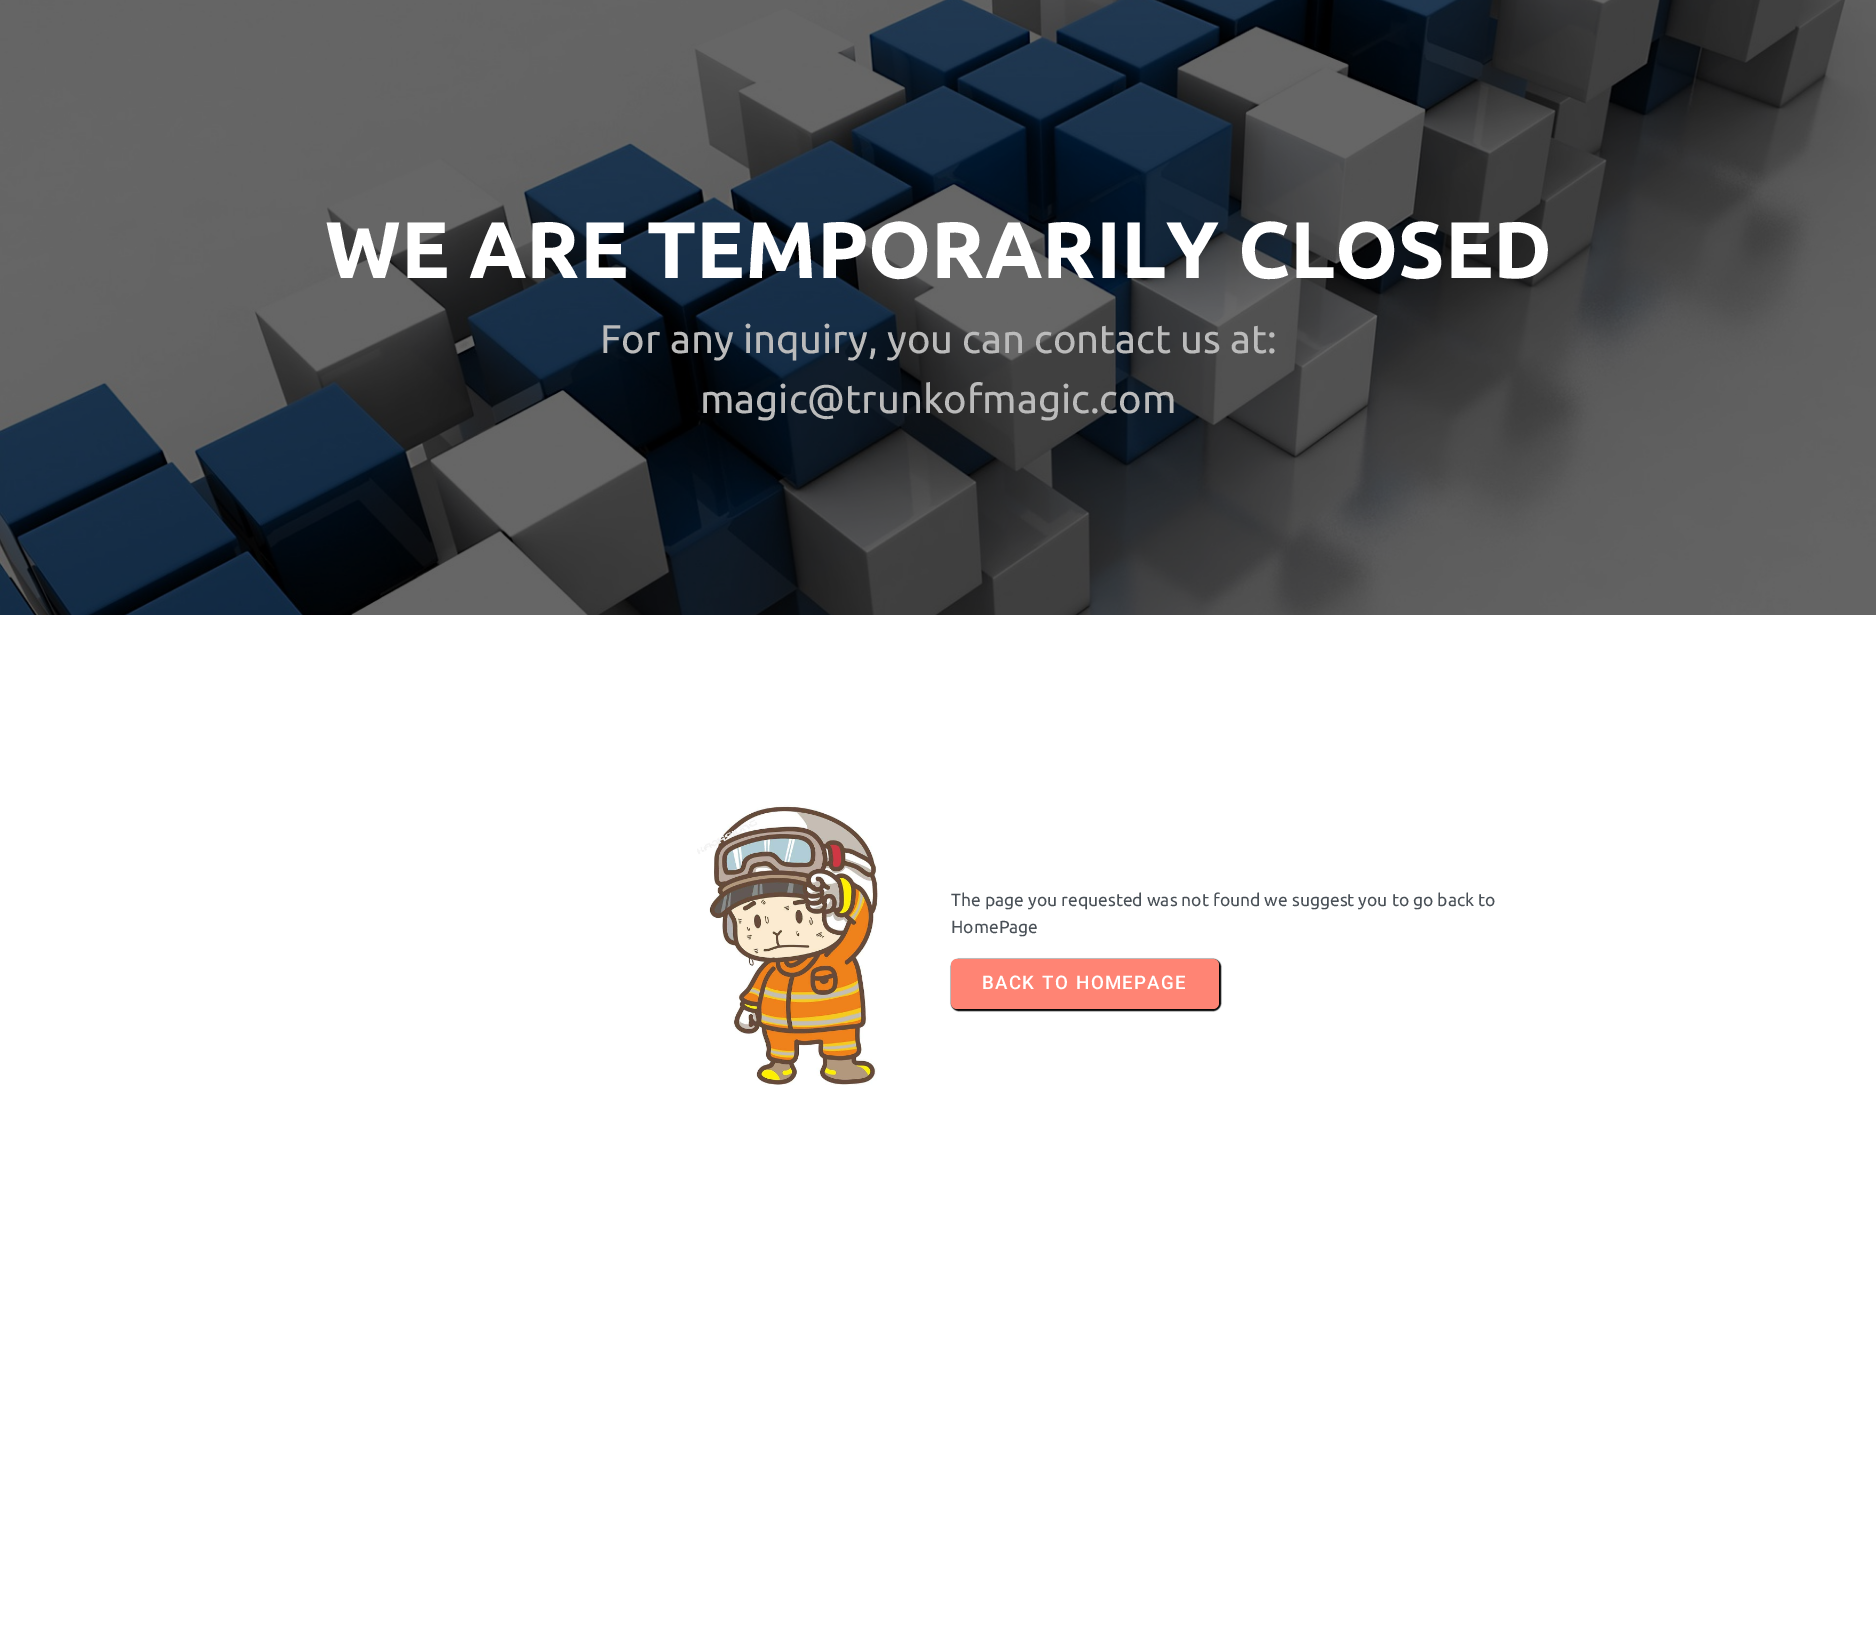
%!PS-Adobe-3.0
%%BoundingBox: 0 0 1876 1645
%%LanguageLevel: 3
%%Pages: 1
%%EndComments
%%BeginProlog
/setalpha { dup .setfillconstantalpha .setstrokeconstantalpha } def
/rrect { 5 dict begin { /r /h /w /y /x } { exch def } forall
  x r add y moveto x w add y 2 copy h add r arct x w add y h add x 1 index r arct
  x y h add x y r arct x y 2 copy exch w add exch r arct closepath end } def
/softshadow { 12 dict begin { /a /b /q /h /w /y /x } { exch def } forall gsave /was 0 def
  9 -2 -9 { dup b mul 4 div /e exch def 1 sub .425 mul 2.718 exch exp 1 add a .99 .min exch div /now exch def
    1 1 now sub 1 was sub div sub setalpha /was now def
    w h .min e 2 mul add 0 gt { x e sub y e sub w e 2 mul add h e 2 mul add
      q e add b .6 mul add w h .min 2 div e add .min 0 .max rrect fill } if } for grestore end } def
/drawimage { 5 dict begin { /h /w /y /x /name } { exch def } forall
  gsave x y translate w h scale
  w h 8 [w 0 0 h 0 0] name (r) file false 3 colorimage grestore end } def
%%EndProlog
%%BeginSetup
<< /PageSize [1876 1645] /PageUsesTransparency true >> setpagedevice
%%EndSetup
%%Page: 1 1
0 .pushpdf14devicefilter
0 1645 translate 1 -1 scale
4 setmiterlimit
1 setgray
0 0 1876 1645 rectfill
(images/1.raw) 0 0 1876 615 drawimage
(images/2.raw) 697 805 182 280 drawimage
0 setgray
951 959 270 52 8 0.5 1 softshadow
1 0.518 0.455 setrgbcolor
951 959 268 50 6 rrect fill
/Ubuntu-Bold [80 0 0 -80 0 0] selectfont
1 setgray
325 278 moveto (WE ARE TEMPORARILY CLOSED) show
/Ubuntu-Regular [40 0 0 -40 0 0] selectfont
0.733 setgray
600 353 moveto (For any inquiry, you can contact us at:) show
700 413 moveto (magic@trunkofmagic.com) show
/Ubuntu-Regular [17.5 0 0 -17.5 0 0] selectfont
0.286 0.314 0.341 setrgbcolor
951 906 moveto (The page you requested was not found we suggest you to go back to) show
951 933 moveto (HomePage) show
/Roboto-Medium [18.75 0 0 -18.75 0 0] selectfont
1 setgray
982 989 moveto 1 0 32 1.25 0 (BACK TO HOMEPAGE) awidthshow
.poppdf14devicefilter showpage
%%EOF
